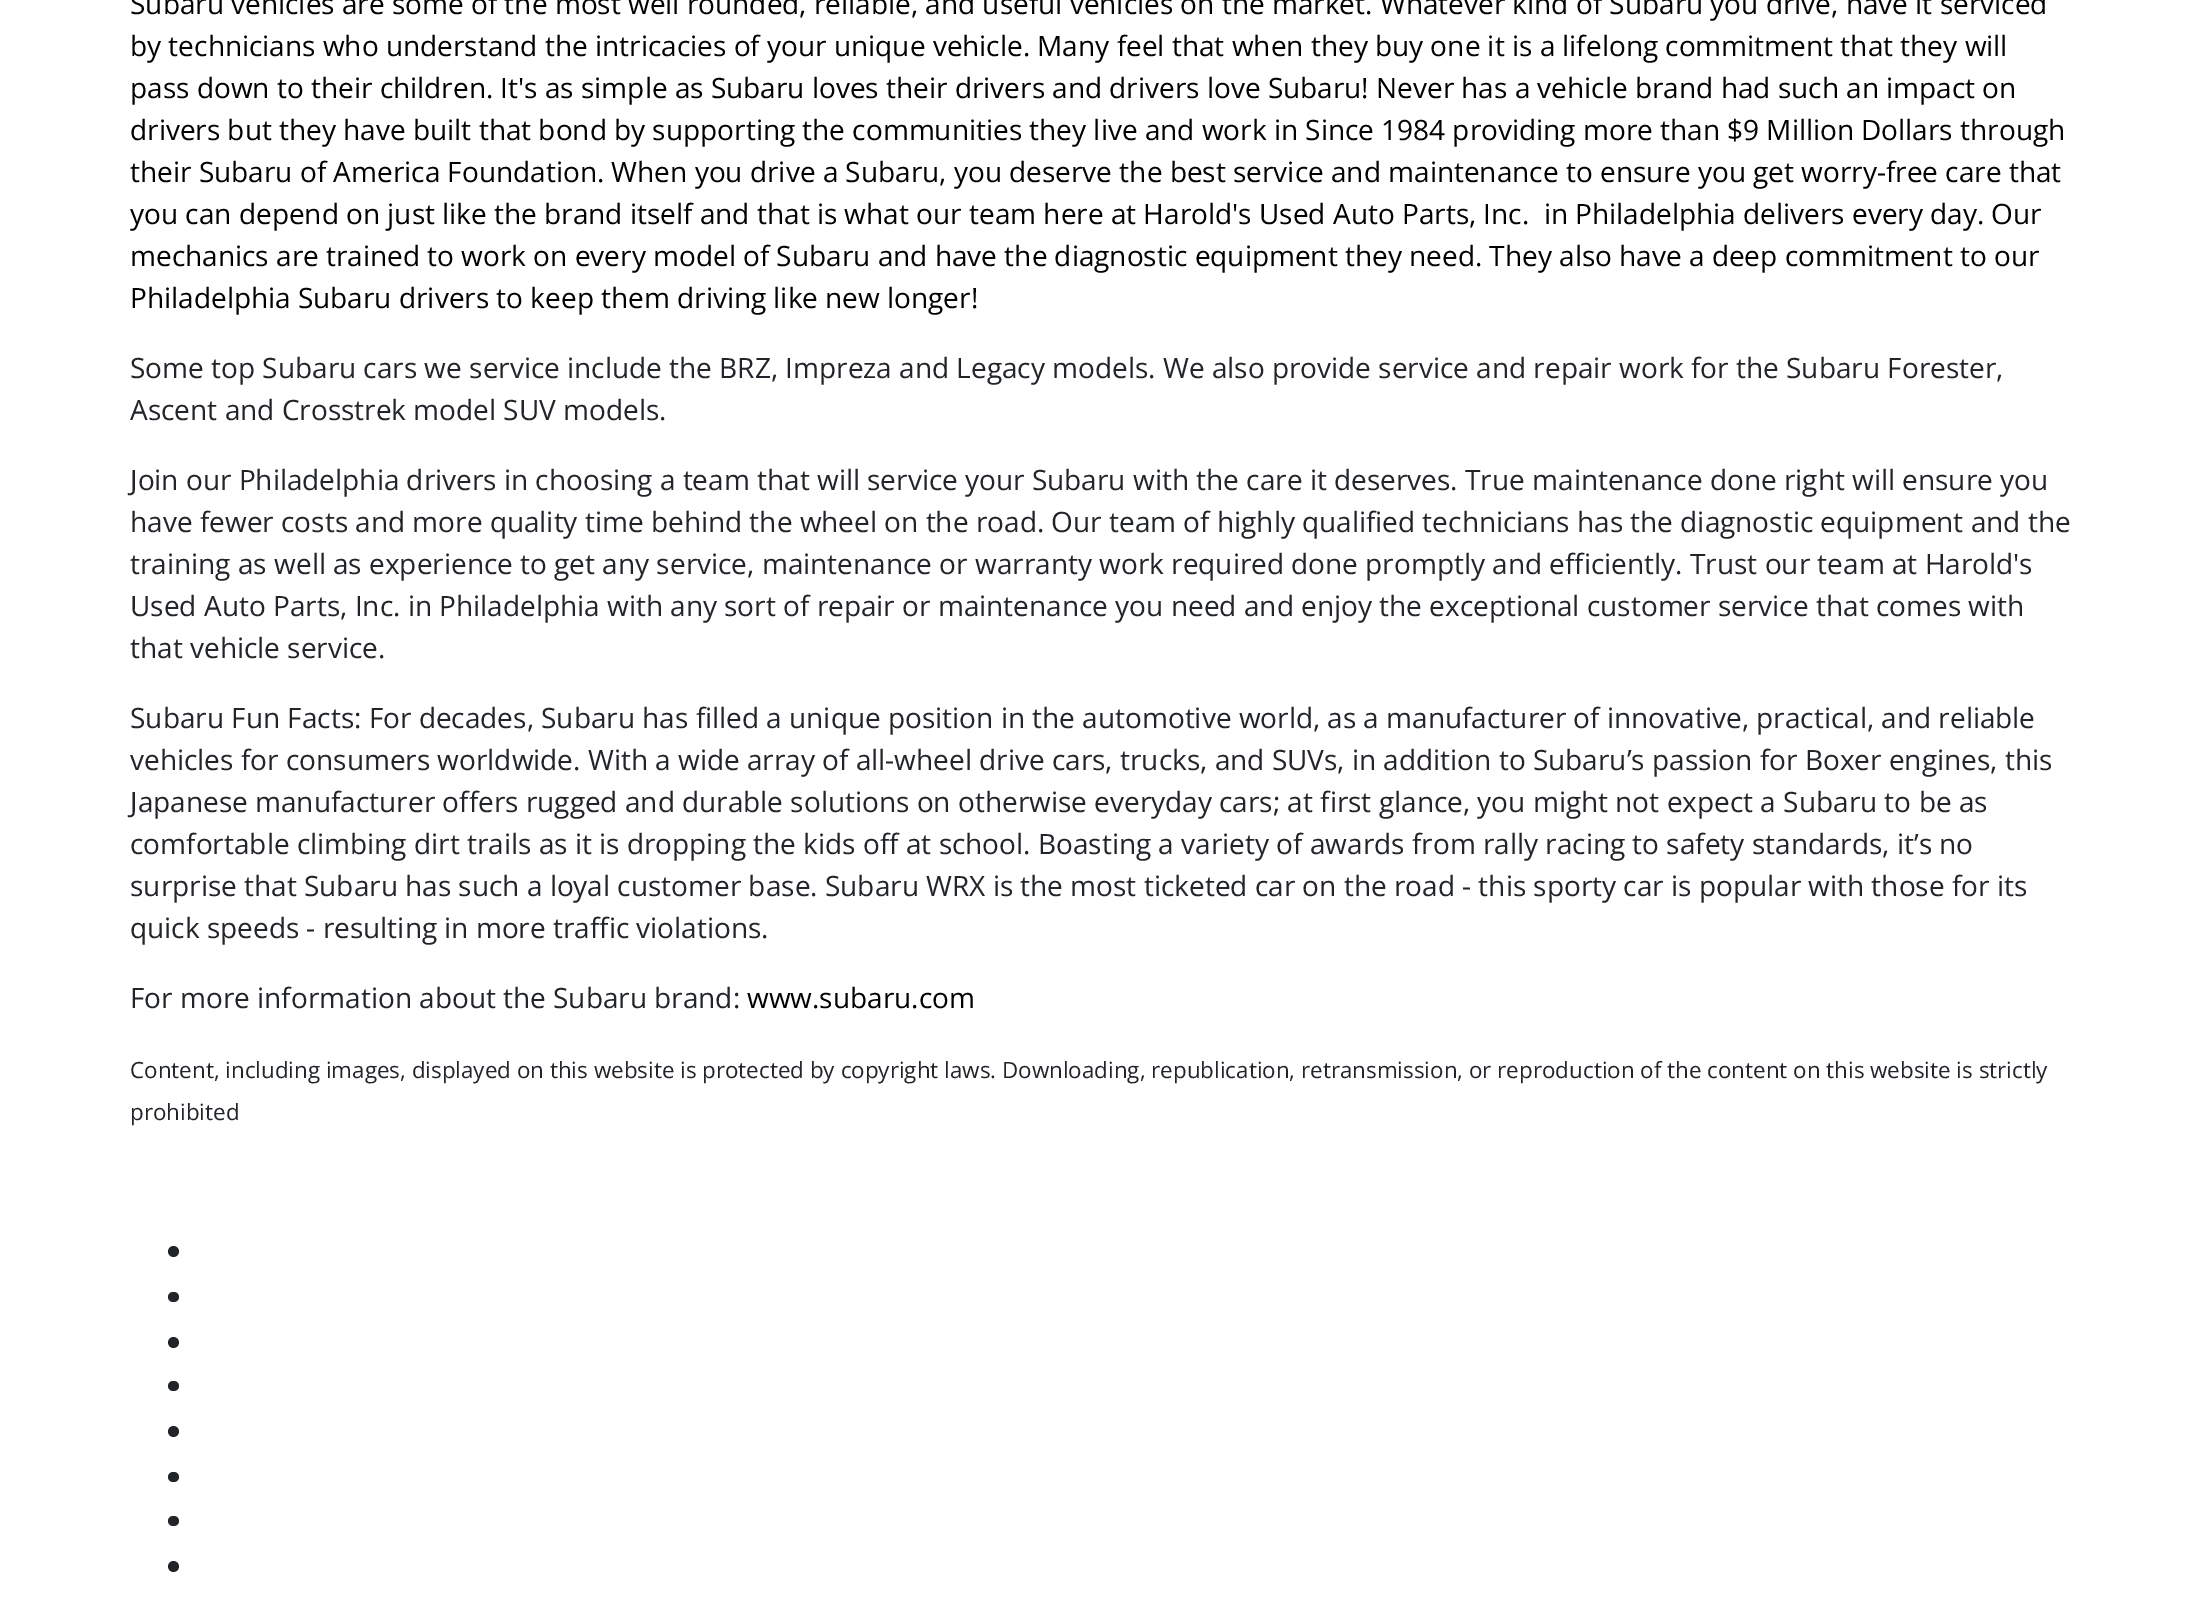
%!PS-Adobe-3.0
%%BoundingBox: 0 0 2201 1602
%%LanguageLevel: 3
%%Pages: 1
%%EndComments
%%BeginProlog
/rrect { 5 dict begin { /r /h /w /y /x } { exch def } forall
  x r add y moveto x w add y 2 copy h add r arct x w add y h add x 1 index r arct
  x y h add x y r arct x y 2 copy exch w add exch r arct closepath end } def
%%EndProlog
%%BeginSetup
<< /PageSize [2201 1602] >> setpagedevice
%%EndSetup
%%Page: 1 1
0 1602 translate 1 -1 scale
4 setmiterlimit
1 setgray
0 0 2201 1602 rectfill
0.129 0.145 0.161 setrgbcolor
newpath 173.5 1251.5 5.5 0 360 arc closepath fill
168 1292 11 10 5 rrect fill
newpath 173.5 1342.5 5.5 0 360 arc closepath fill
168 1381 11 10 5 rrect fill
newpath 173.5 1431.5 5.5 0 360 arc closepath fill
168 1472 11 10 5 rrect fill
168 1516 11 10 5 rrect fill
newpath 173.5 1566.5 5.5 0 360 arc closepath fill
/OpenSans-Regular [28 0 0 -28 0 0] selectfont
0 setgray
130 14 moveto (Subaru vehicles are some of the most well rounded, reliable, and useful vehicles on the market. Whatever kind of Subaru you drive, have it serviced) show
130 56 moveto (by technicians who understand the intricacies of your unique vehicle. Many feel that when they buy one it is a lifelong commitment that they will) show
130 98 moveto (pass down to their children. It's as simple as Subaru loves their drivers and drivers love Subaru! Never has a vehicle brand had such an impact on) show
130 140 moveto (drivers but they have built that bond by supporting the communities they live and work in Since 1984 providing more than $9 Million Dollars through) show
130 182 moveto (their Subaru of America Foundation. When you drive a Subaru, you deserve the best service and maintenance to ensure you get worry-free care that) show
130 224 moveto (you can depend on just like the brand itself and that is what our team here at Harold's Used Auto Parts, Inc.  in Philadelphia delivers every day. Our) show
130 266 moveto (mechanics are trained to work on every model of Subaru and have the diagnostic equipment they need. They also have a deep commitment to our) show
130 308 moveto (Philadelphia Subaru drivers to keep them driving like new longer!) show
0.129 0.145 0.161 setrgbcolor
130 378 moveto (Some top Subaru cars we service include the BRZ, Impreza and Legacy models. We also provide service and repair work for the Subaru Forester,) show
130 420 moveto (Ascent and Crosstrek model SUV models.) show
130 490 moveto (Join our Philadelphia drivers in choosing a team that will service your Subaru with the care it deserves. True maintenance done right will ensure you) show
130 532 moveto (have fewer costs and more quality time behind the wheel on the road. Our team of highly qualified technicians has the diagnostic equipment and the) show
130 574 moveto (training as well as experience to get any service, maintenance or warranty work required done promptly and efficiently. Trust our team at Harold's) show
130 616 moveto (Used Auto Parts, Inc. in Philadelphia with any sort of repair or maintenance you need and enjoy the exceptional customer service that comes with) show
130 658 moveto (that vehicle service.) show
130 728 moveto (Subaru Fun Facts: For decades, Subaru has filled a unique position in the automotive world, as a manufacturer of innovative, practical, and reliable) show
130 770 moveto (vehicles for consumers worldwide. With a wide array of all-wheel drive cars, trucks, and SUVs, in addition to Subaru’s passion for Boxer engines, this) show
130 812 moveto (Japanese manufacturer offers rugged and durable solutions on otherwise everyday cars; at first glance, you might not expect a Subaru to be as) show
130 854 moveto (comfortable climbing dirt trails as it is dropping the kids off at school. Boasting a variety of awards from rally racing to safety standards, it’s no) show
130 896 moveto (surprise that Subaru has such a loyal customer base. Subaru WRX is the most ticketed car on the road - this sporty car is popular with those for its) show
130 938 moveto (quick speeds - resulting in more traffic violations.) show
130 1008 moveto (For more information about the Subaru brand:) show
0 setgray
747 1008 moveto (www.subaru.com) show
/OpenSans-Regular [22.4 0 0 -22.4 0 0] selectfont
0.129 0.145 0.161 setrgbcolor
130 1078 moveto (Content, including images, displayed on this website is protected by copyright laws. Downloading, republication, retransmission, or reproduction of the content on this website is strictly) show
130 1120 moveto (prohibited) show
showpage
%%EOF
